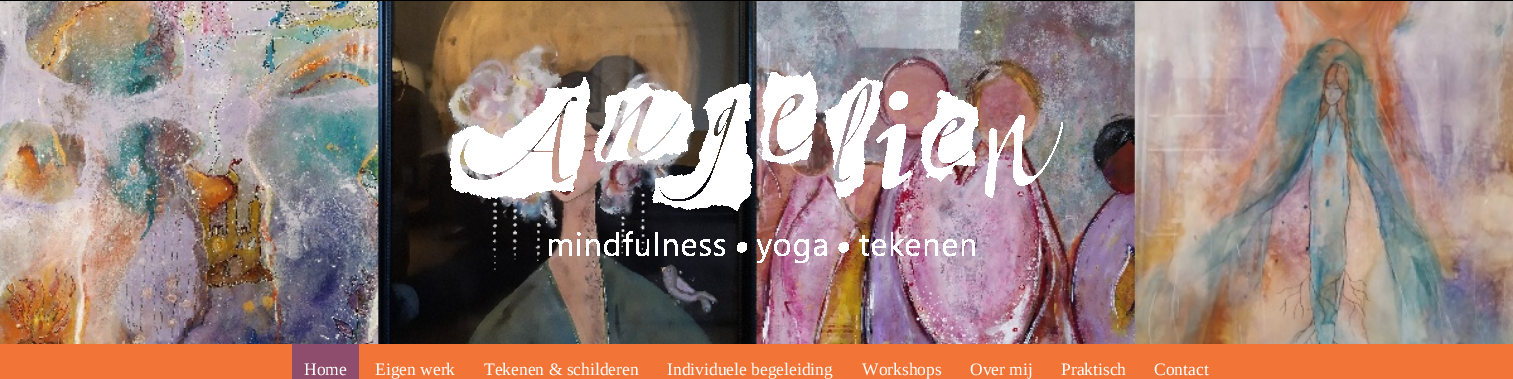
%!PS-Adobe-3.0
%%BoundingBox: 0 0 1513 379
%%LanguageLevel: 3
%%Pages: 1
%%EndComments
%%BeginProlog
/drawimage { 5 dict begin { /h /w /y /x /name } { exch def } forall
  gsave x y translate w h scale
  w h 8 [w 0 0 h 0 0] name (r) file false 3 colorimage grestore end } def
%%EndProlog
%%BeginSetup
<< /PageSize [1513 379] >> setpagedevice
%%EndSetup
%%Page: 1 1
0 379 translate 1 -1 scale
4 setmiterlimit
0 setgray
0 0 1513 379 rectfill
(images/1.raw) 0 1 1513 343 drawimage
(images/2.raw) 450 71 613 192 drawimage
0.949 0.459 0.216 setrgbcolor
0 344 1513 35 rectfill
0.557 0.302 0.424 setrgbcolor
292 344 67 35 rectfill
/LiberationSerif-Regular [17.5 0 0 -17.5 0 0] selectfont
1 setgray
304 375 moveto (Home) show
375 375 moveto (Eigen werk) show
484 375 moveto (Tekenen & schilderen) show
667 375 moveto (Individuele begeleiding) show
862 375 moveto (Workshops) show
970 375 moveto (Over mij) show
1061 375 moveto (Praktisch) show
1154 375 moveto (Contact) show
showpage
%%EOF
